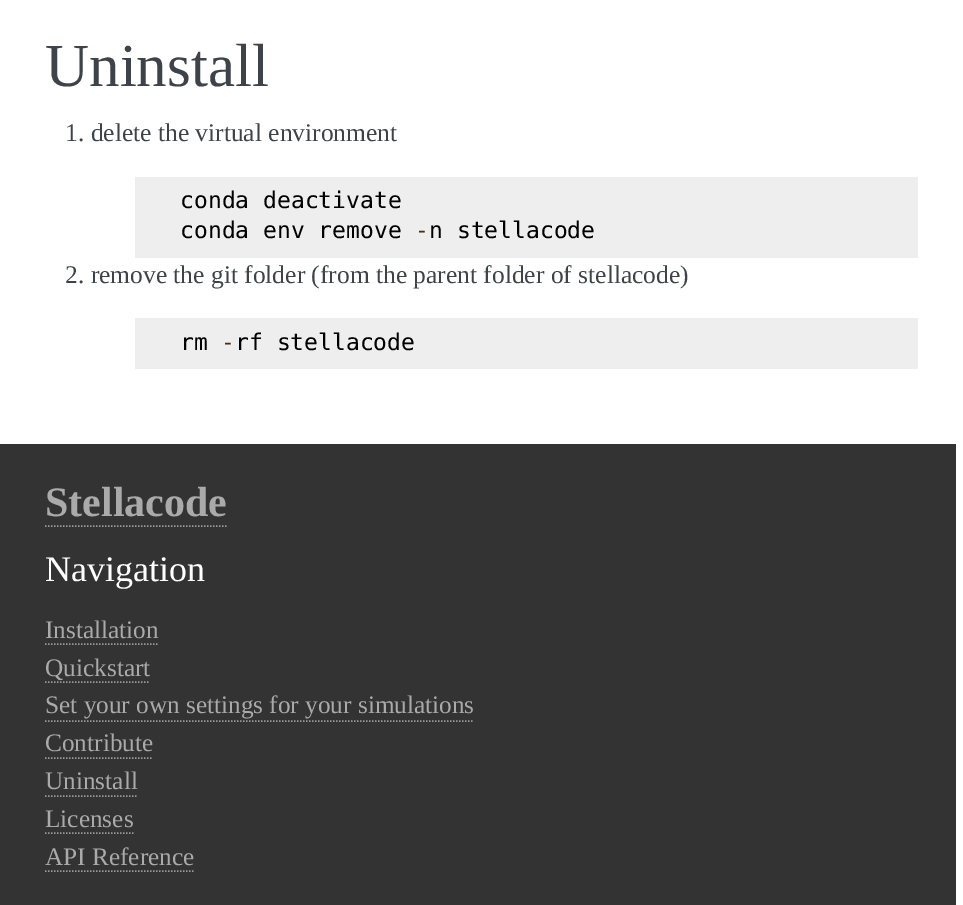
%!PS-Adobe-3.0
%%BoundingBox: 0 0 963 905
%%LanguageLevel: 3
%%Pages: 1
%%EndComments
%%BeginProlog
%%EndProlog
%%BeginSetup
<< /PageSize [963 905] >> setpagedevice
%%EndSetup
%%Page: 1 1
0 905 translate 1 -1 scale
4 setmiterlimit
1 setgray
0 0 963 905 rectfill
0.933 setgray
135 177 783 81 rectfill
135 318 783 51 rectfill
0.2 setgray
0 444 956 461 rectfill
0.6 setgray
1.5 setlinewidth
[1.5 1.5] 0 setdash
newpath 45 526 moveto 226.5 526 lineto stroke
newpath 45 644 moveto 159 644 lineto stroke
newpath 45 682 moveto 150 682 lineto stroke
newpath 45 721 moveto 472.5 721 lineto stroke
newpath 45 758 moveto 153 758 lineto stroke
newpath 45 796 moveto 138 796 lineto stroke
newpath 45 833 moveto 133.5 833 lineto stroke
newpath 45 871 moveto 193.5 871 lineto stroke
/LiberationSerif-Regular [61 0 0 -61 0 0] selectfont
0.243 0.263 0.286 setrgbcolor
45 86 moveto (Uninstall) show
/LiberationSerif-Regular [25.5 0 0 -25.5 0 0] selectfont
65 141 moveto (1. delete the virtual environment) show
/DejaVuSansMono-Regular [23 0 0 -23 0 0] selectfont
0 setgray
180 208 moveto (conda deactivate) show
180 238 moveto (conda env remove) show
0.345 0.157 0 setrgbcolor
415 238 moveto (-) show
0 setgray
429 238 moveto (n stellacode) show
/LiberationSerif-Regular [25.5 0 0 -25.5 0 0] selectfont
0.243 0.263 0.286 setrgbcolor
65 283 moveto (2. remove the git folder \(from the parent folder of stellacode\)) show
/DejaVuSansMono-Regular [23 0 0 -23 0 0] selectfont
0 setgray
180 350 moveto (rm) show
0.345 0.157 0 setrgbcolor
221 350 moveto (-) show
0 setgray
235 350 moveto (rf stellacode) show
/LiberationSerif-Bold [42 0 0 -42 0 0] selectfont
0.667 setgray
45 516 moveto (Stellacode) show
/LiberationSerif-Regular [36 0 0 -36 0 0] selectfont
1 setgray
45 581 moveto (Navigation) show
/LiberationSerif-Regular [25.25 0 0 -25.25 0 0] selectfont
0.667 setgray
45 638 moveto (Installation) show
45 676 moveto (Quickstart) show
45 713 moveto (Set your own settings for your simulations) show
45 751 moveto (Contribute) show
45 789 moveto (Uninstall) show
45 827 moveto (Licenses) show
45 865 moveto (API Reference) show
showpage
%%EOF
